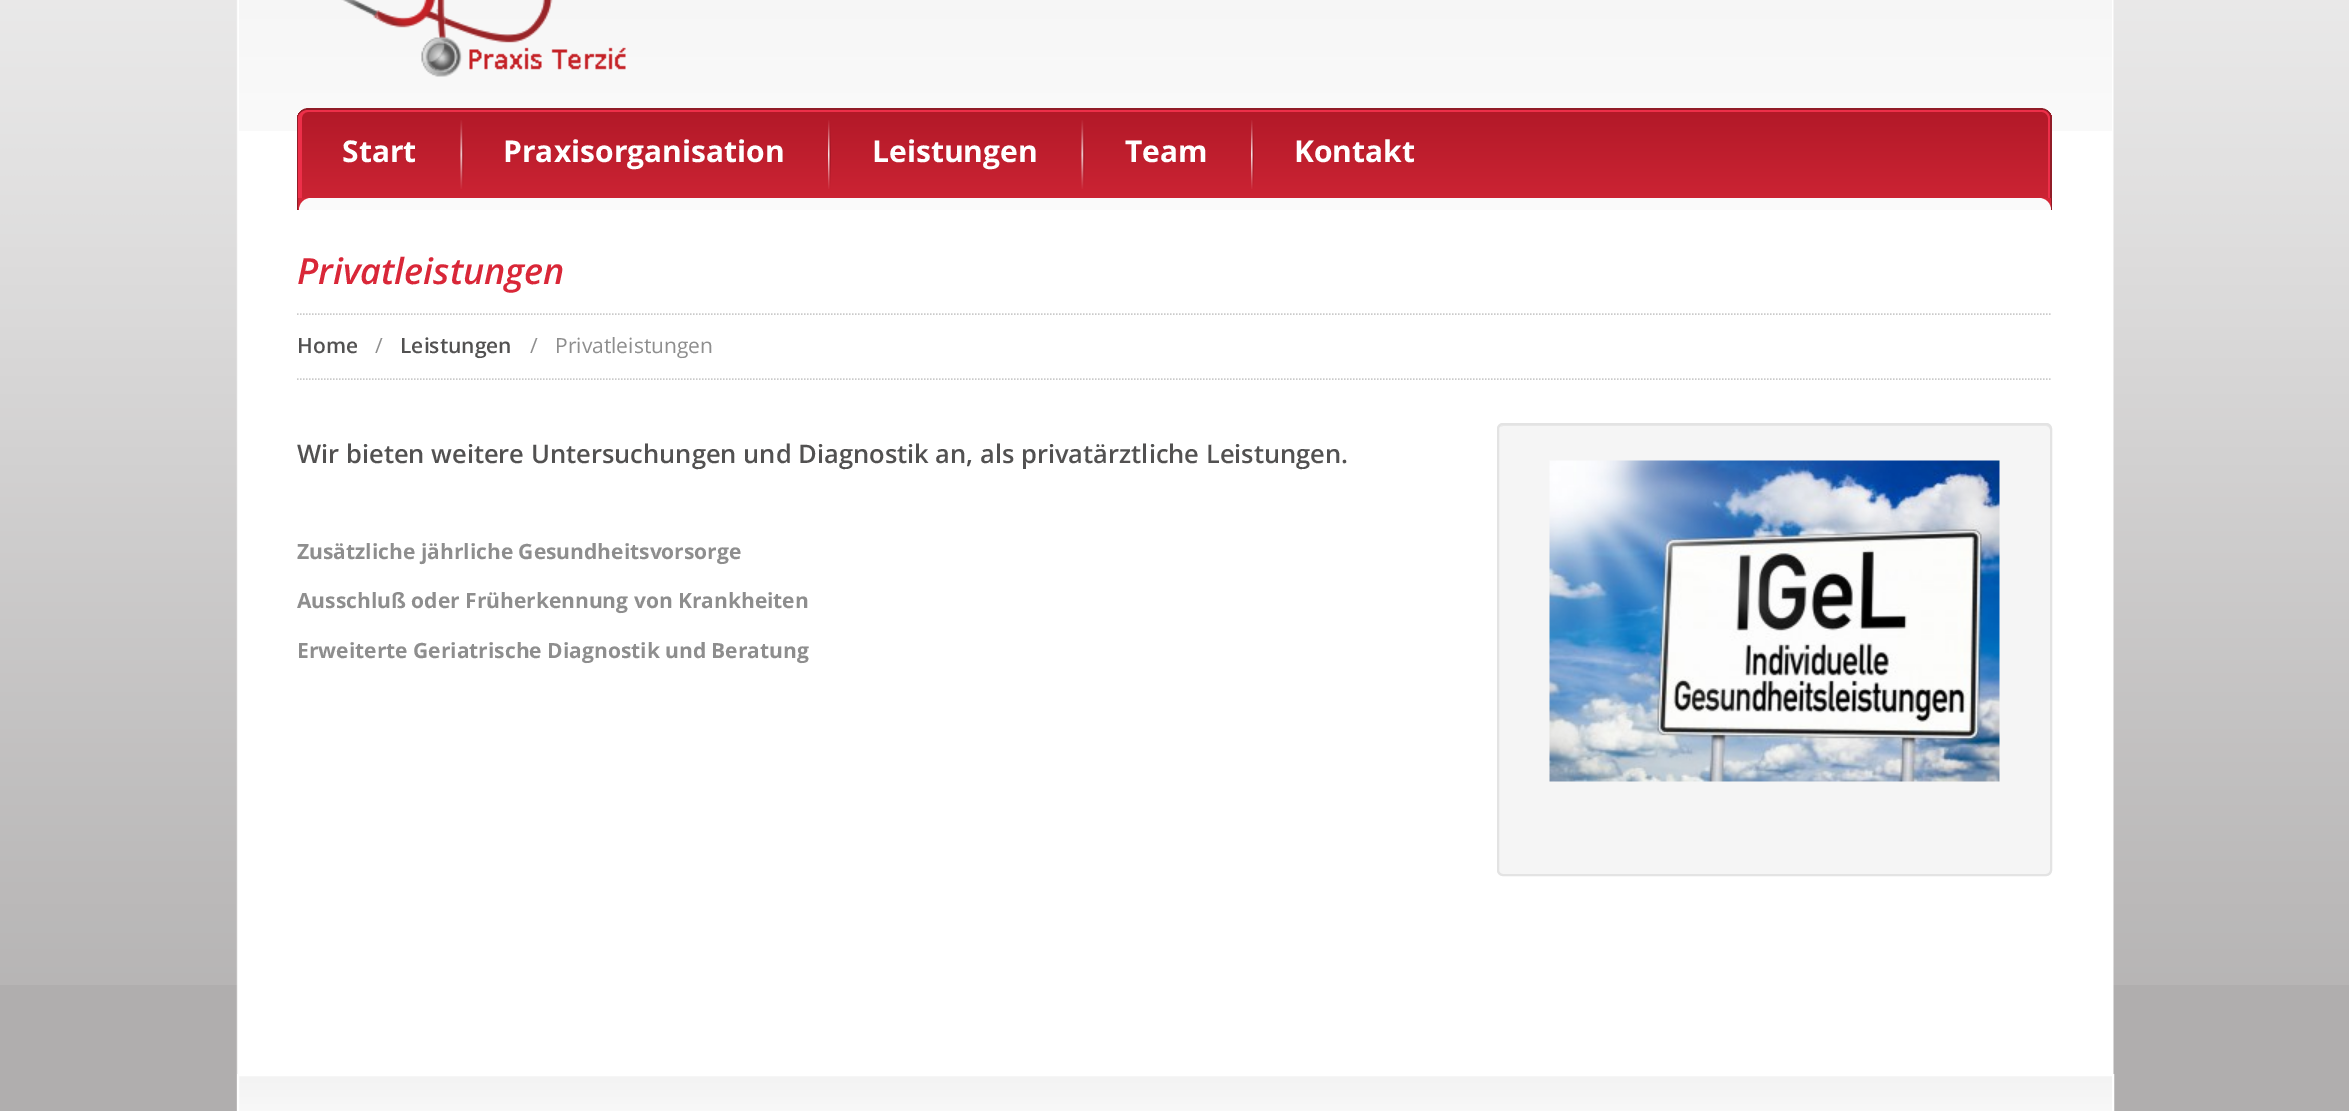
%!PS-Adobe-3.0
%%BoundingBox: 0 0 2349 1111
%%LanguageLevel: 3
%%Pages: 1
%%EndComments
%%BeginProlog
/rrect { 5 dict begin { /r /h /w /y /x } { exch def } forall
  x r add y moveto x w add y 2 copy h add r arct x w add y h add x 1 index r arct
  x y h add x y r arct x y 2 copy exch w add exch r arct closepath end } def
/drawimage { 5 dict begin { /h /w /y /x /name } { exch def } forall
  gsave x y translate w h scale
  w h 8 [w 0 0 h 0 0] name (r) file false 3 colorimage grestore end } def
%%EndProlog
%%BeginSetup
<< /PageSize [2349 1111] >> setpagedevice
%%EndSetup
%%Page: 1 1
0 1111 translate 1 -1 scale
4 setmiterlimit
0.69 0.682 0.682 setrgbcolor
0 0 2349 1111 rectfill
(images/1.raw) 0 0 2349 985 drawimage
(images/2.raw) 236 0 1878 1111 drawimage
(images/3.raw) 239 0 1873 131 drawimage
(images/4.raw) 341 0 285 77 drawimage
gsave
newpath 309 108 moveto 2040 108 lineto 2046.5 108 2052 113.5 2052 120 curveto 2052 210 lineto 297 210 lineto 297 120 lineto 297 113.5 302.5 108 309 108 curveto closepath clip newpath
gsave newpath 297 110 moveto 2052 110 lineto 2052 210 lineto 297 210 lineto closepath clip newpath
<< /ShadingType 2 /ColorSpace /DeviceRGB /Coords [1175 109 1175 210] /Extend [true true] /Function << /FunctionType 2 /Domain [0 1] /C0 [0.698 0.098 0.157] /C1 [0.812 0.145 0.208] /N 1 >> >> shfill grestore
grestore
0.569 0.11 0.153 setrgbcolor
newpath 309 108 moveto 2040 108 lineto 2047 108 2052 113 2052 120 curveto 2052 210 lineto 297 210 lineto 297 120 lineto 297 113 302 108 309 108 curveto closepath 309 110 moveto 2040 110 lineto 2046 110 2050 114 2050 120 curveto 2050 210 lineto 298 210 lineto 298 120 lineto 298 114 303 110 309 110 curveto closepath eofill
0.929 0.184 0.286 setrgbcolor
newpath 308 110 moveto 2042 110 lineto 2046 110 2050 114 2050 118 curveto 2050 198 lineto 298 198 lineto 298 118 lineto 298 114 303 110 308 110 curveto closepath 308 112 moveto 2042 112 lineto 2045 112 2048 115 2048 118 curveto 2048 198 lineto 302 198 lineto 302 118 lineto 302 115 304 112 308 112 curveto closepath eofill
(images/5.raw) 460 120 4 69 drawimage
(images/6.raw) 828 120 3 69 drawimage
(images/5.raw) 1081 120 4 69 drawimage
(images/7.raw) 1251 120 3 69 drawimage
0.839 0.149 0.216 setrgbcolor
299 198 1752 12 rectfill
0.98 setgray
newpath 311 198 moveto 2039 198 lineto 2045.5 198 2051 203.5 2051 210 curveto 299 210 lineto 299 203.5 304.5 198 311 198 curveto closepath fill
0.792 setgray
1.5 setlinewidth
[1.5 1.5] 0 setdash
newpath 297 314 moveto 2052 314 lineto stroke
newpath 297 379 moveto 2052 379 lineto stroke
0.961 setgray
1497 423 555 453 6 rrect fill
0.914 setgray
newpath 1503 426 moveto 2046 426 lineto 2048 426 2050 428 2050 430 curveto 2050 873 lineto 2051 872 2051 871 2051 870 curveto 2051 430 lineto 2051 427 2049 425 2046 425 curveto 1504 425 lineto 1502 425 1501 426 1500 427 curveto closepath fill
0.89 setgray
2 setlinewidth
[] 0 setdash
1498 424 553 451 5 rrect stroke
(images/8.raw) 1549 460 451 322 drawimage
gsave newpath 239 1076 moveto 2112 1076 lineto 2112 1111 lineto 239 1111 lineto closepath clip newpath
<< /ShadingType 2 /ColorSpace /DeviceRGB /Coords [1175 1075 1175 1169] /Extend [true true] /Function << /FunctionType 2 /Domain [0 1] /C0 [0.953 0.953 0.953] /C1 [1 1 1] /N 1 >> >> shfill grestore
1 setgray
238 1075 1875 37 rectstroke
/OpenSans-Bold [30 0 0 -30 0 0] selectfont
342 162 moveto (Start) show
503 162 moveto (Praxisorganisation) show
872 162 moveto (Leistungen) show
1125 162 moveto (Team) show
1294 162 moveto (Kontakt) show
/OpenSans-SemiBoldItalic [36 0 0 -36 0 0] selectfont
0.851 0.153 0.22 setrgbcolor
297 284 moveto (Privatleistungen) show
/OpenSans-SemiBold [21 0 0 -21 0 0] selectfont
0.322 0.318 0.318 setrgbcolor
297 353 moveto (Home) show
/OpenSans-Regular [21 0 0 -21 0 0] selectfont
0.557 setgray
375 353 moveto (/) show
/OpenSans-SemiBold [21 0 0 -21 0 0] selectfont
0.322 0.318 0.318 setrgbcolor
400 353 moveto (Leistungen) show
/OpenSans-Regular [21 0 0 -21 0 0] selectfont
0.557 setgray
530 353 moveto (/) show
555 353 moveto (Privatleistungen) show
/OpenSans-SemiBold [25.5 0 0 -25.5 0 0] selectfont
0.322 0.318 0.318 setrgbcolor
297 463 moveto (Wir bieten weitere Untersuchungen und Diagnostik an, als privatärztliche Leistungen.) show
/OpenSans-Bold [21 0 0 -21 0 0] selectfont
0.557 setgray
297 559 moveto (Zusätzliche jährliche Gesundheitsvorsorge) show
297 608 moveto (Ausschluß oder Früherkennung von Krankheiten) show
297 658 moveto (Erweiterte Geriatrische Diagnostik und Beratung) show
showpage
%%EOF
